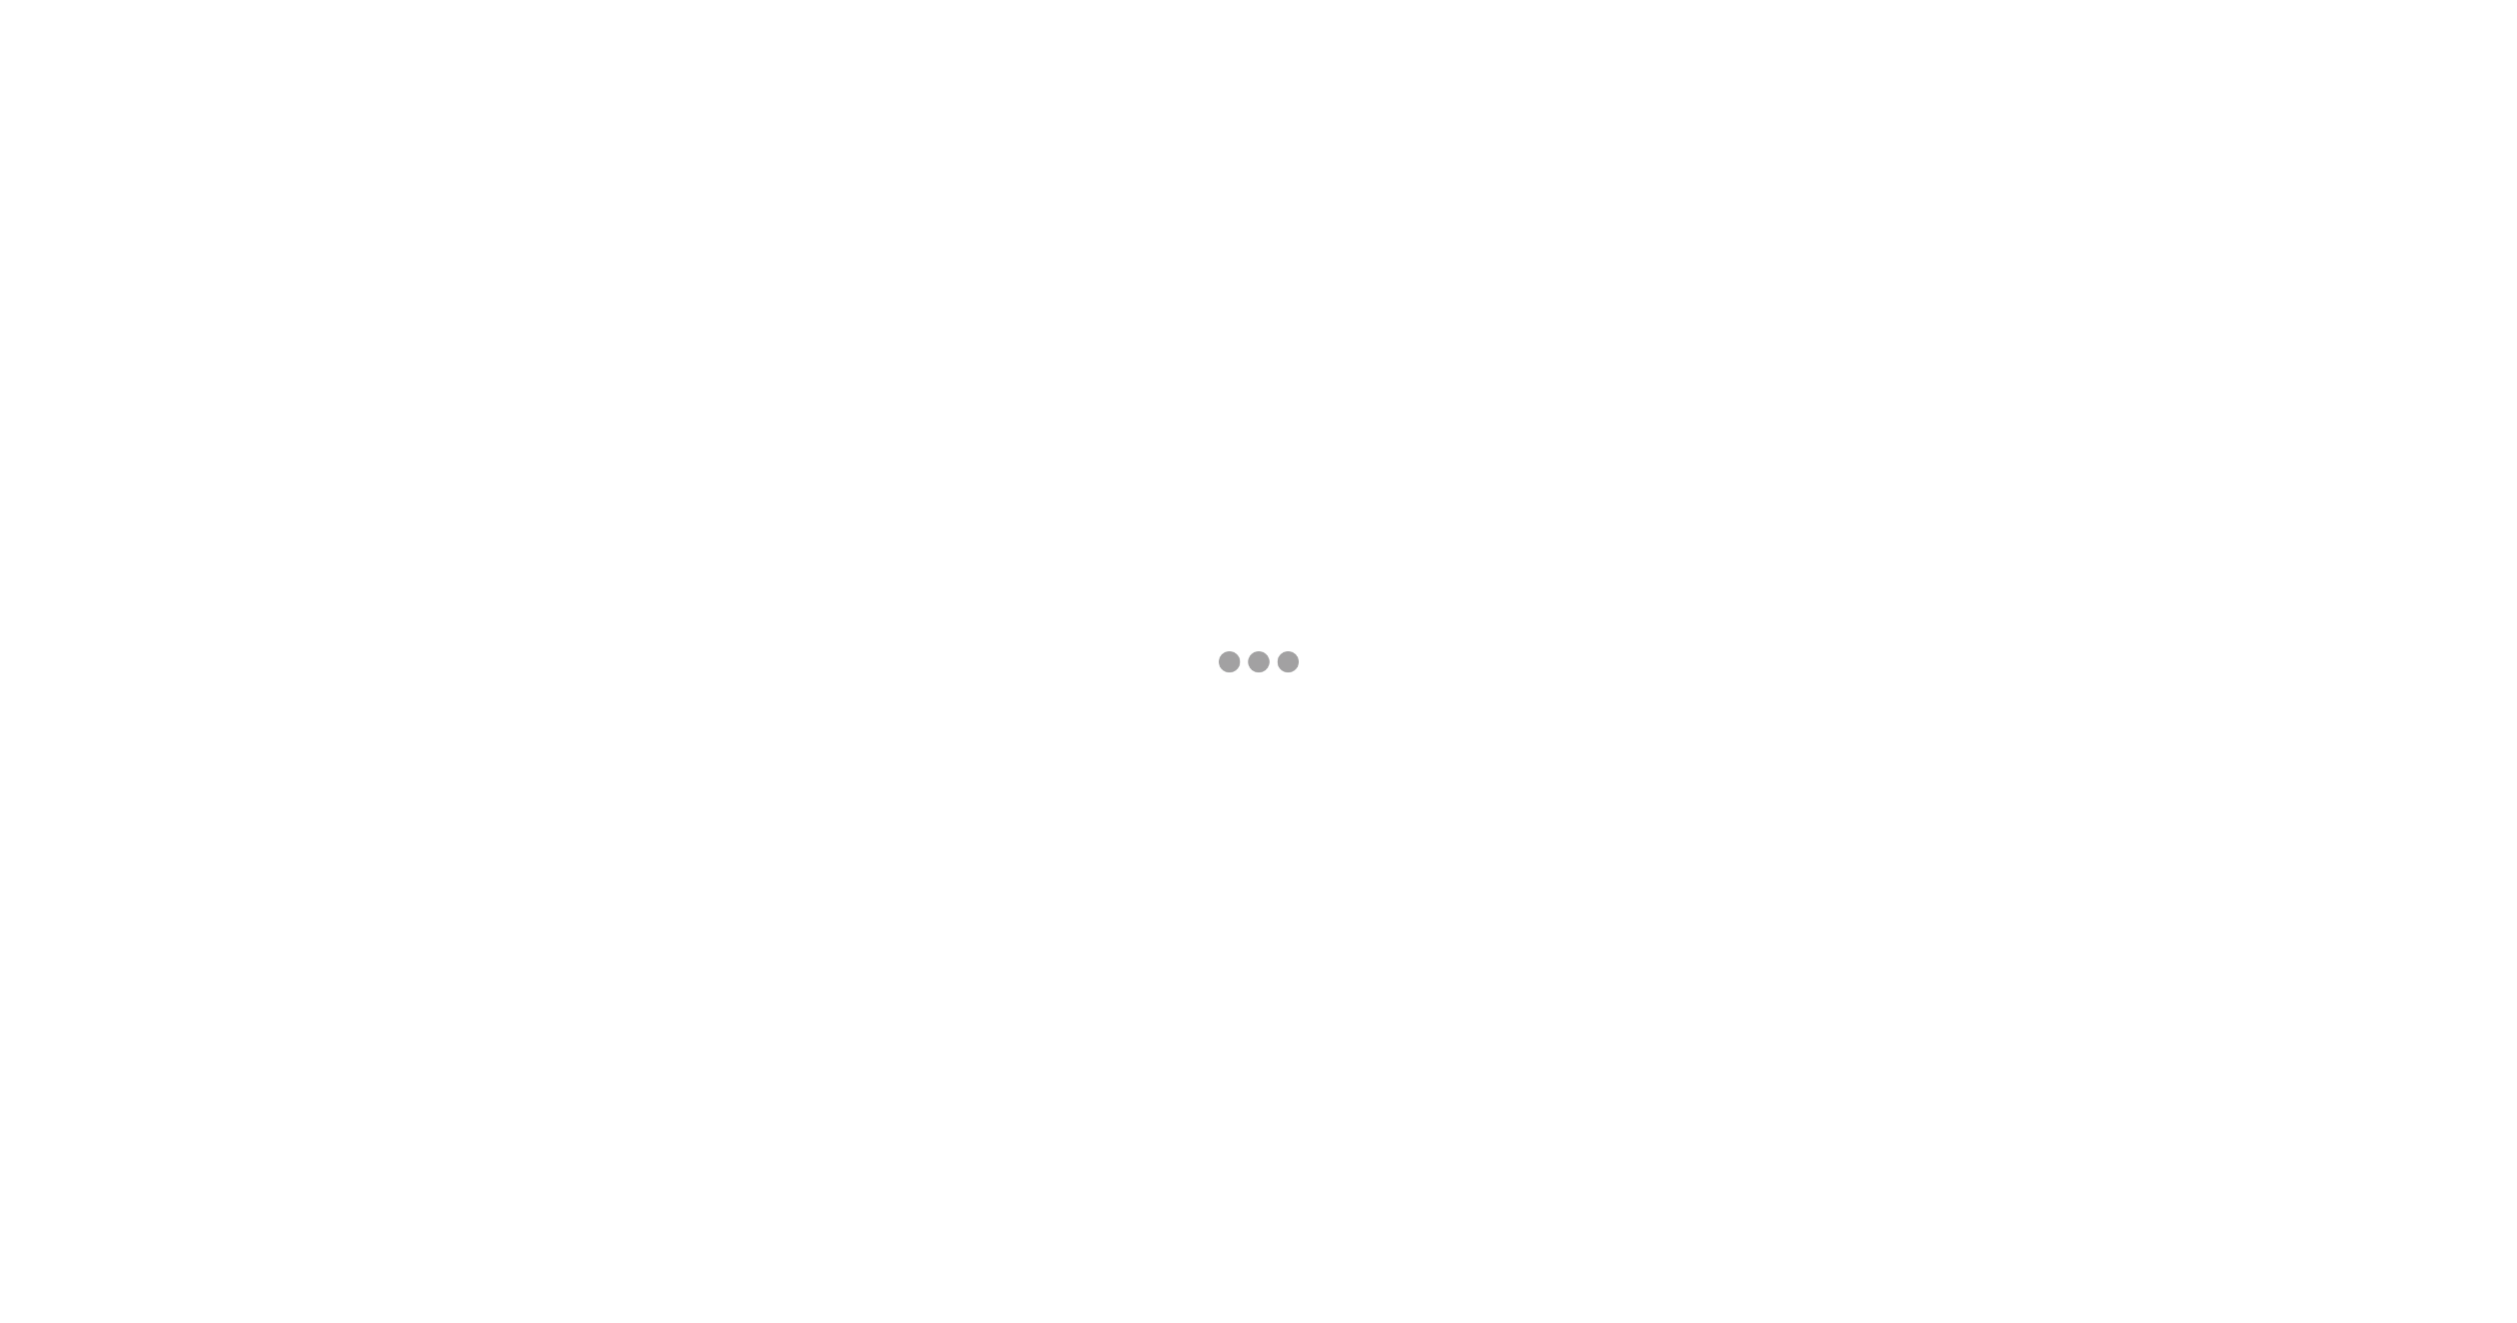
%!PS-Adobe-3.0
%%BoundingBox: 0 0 2517 1323
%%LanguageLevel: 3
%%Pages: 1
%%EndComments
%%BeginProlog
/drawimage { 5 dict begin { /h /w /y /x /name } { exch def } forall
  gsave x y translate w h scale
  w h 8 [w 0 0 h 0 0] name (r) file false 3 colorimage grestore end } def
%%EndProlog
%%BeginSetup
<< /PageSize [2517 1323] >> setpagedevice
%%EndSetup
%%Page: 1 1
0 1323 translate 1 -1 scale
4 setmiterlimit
1 setgray
0 0 2517 1323 rectfill
(images/1.raw) 1218 651 81 22 drawimage
showpage
%%EOF
